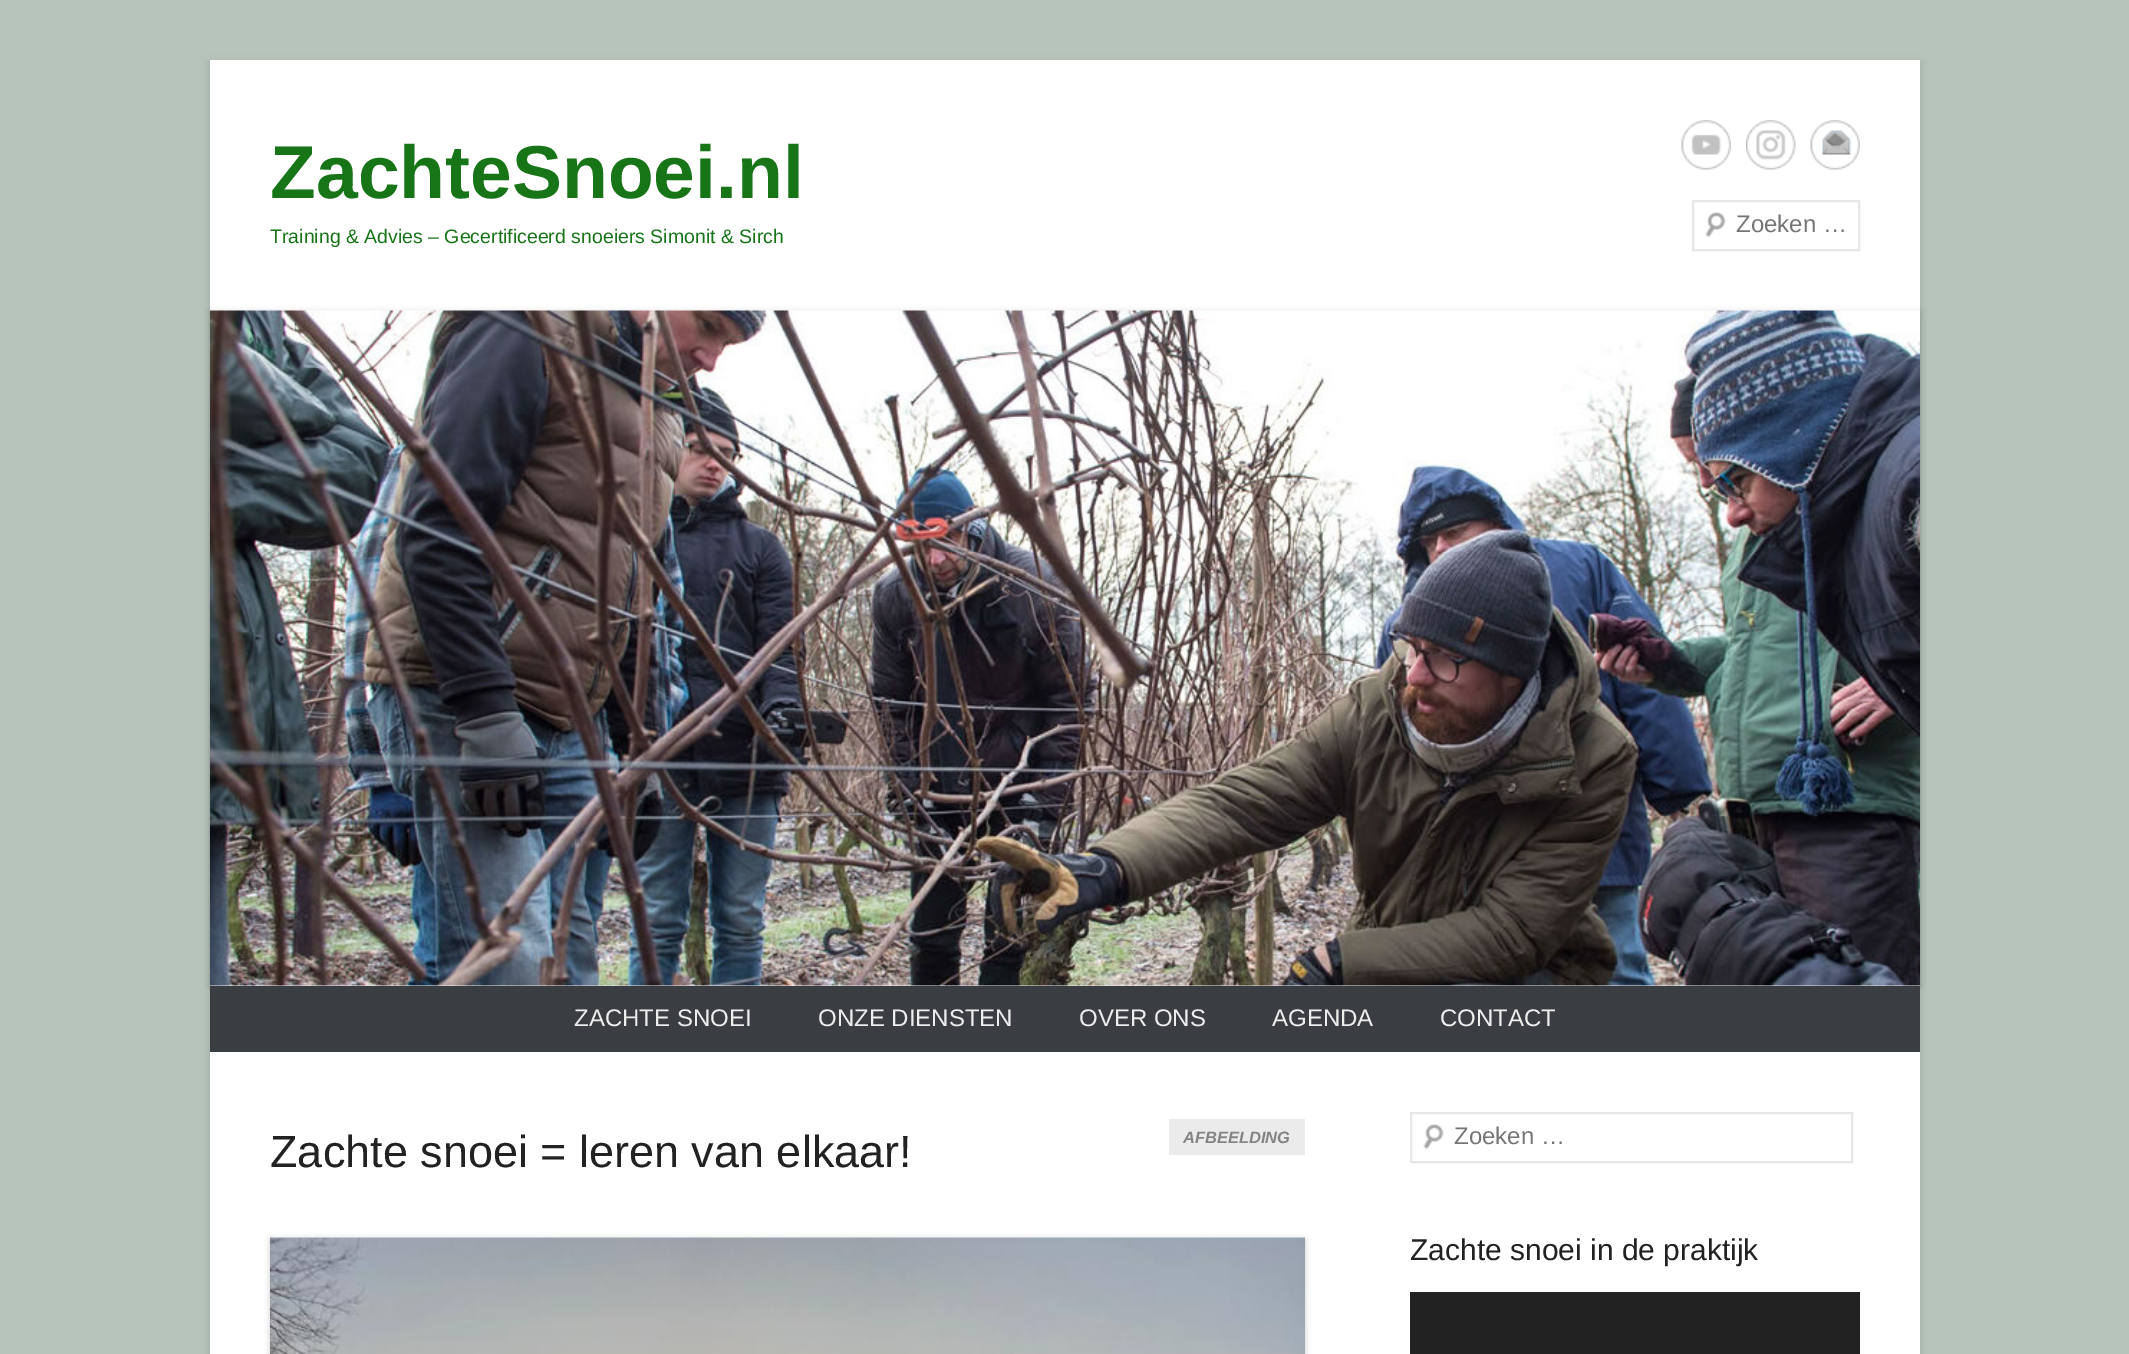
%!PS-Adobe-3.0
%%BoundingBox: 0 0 2129 1354
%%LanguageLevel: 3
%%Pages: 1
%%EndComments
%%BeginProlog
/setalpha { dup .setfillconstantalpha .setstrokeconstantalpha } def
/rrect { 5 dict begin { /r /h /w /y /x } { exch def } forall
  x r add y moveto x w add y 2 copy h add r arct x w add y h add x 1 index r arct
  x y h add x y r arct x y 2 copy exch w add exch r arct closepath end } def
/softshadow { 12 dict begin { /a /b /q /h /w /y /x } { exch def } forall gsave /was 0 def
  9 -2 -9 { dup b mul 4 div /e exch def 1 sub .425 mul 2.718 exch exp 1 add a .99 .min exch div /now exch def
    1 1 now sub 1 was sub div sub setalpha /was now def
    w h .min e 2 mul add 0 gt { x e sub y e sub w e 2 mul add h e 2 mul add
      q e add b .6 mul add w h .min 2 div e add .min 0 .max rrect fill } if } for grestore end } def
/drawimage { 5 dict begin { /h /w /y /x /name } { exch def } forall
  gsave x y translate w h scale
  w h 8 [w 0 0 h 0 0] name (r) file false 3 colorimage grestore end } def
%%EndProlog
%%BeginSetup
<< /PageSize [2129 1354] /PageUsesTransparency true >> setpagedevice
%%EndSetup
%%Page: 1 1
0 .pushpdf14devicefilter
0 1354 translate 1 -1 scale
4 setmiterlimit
0.714 0.769 0.733 setrgbcolor
0 0 2129 1354 rectfill
0.392 setgray
210 63 1710 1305 0 4.5 0.3 softshadow
1 setgray
210 60 1710 1294 rectfill
(images/1.raw) 1681 120 50 50 drawimage
(images/2.raw) 1746 120 50 50 drawimage
(images/3.raw) 1810 120 50 50 drawimage
(images/4.raw) 1705 211 21 27 drawimage
0.902 setgray
2 setlinewidth
1693 201 166 49 rectstroke
0 setgray
210 312 1710 675 0 3 0.2 softshadow
(images/5.raw) 210 310 1710 676 drawimage
0.227 0.239 0.255 setrgbcolor
210 986 1710 66 rectfill
0.922 setgray
1169 1119 136 36 rectfill
0 setgray
270 1239 1035 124 0 3 0.2 softshadow
(images/6.raw) 270 1237 1035 117 drawimage
(images/4.raw) 1423 1123 21 27 drawimage
0.902 setgray
1411 1113 441 49 rectstroke
0.133 setgray
1410 1292 450 62 rectfill
/LiberationSans-Bold [75 0 0 -75 0 0] selectfont
0.09 0.459 0.09 setrgbcolor
270 198 moveto (ZachteSnoei.nl) show
/LiberationSans-Regular [19.5 0 0 -19.5 0 0] selectfont
270 243 moveto (Training & Advies – Gecertificeerd snoeiers Simonit & Sirch) show
/LiberationSans-Regular [24 0 0 -24 0 0] selectfont
0.459 setgray
1736 232 moveto (Zoeken …) show
0.933 setgray
574 1026 moveto (ZACHTE SNOEI) show
818 1026 moveto (ONZE DIENSTEN) show
1079 1026 moveto (OVER ONS) show
1272 1026 moveto (AGENDA) show
1440 1026 moveto (CONTACT) show
/LiberationSans-Regular [45 0 0 -45 0 0] selectfont
0.133 setgray
270 1167 moveto (Zachte snoei = leren van elkaar!) show
/LiberationSans-BoldItalic [16.5 0 0 -16.5 0 0] selectfont
0.518 setgray
1183 1143 moveto (AFBEELDING) show
/LiberationSans-Regular [24 0 0 -24 0 0] selectfont
0.459 setgray
1454 1144 moveto (Zoeken …) show
/LiberationSans-Regular [30 0 0 -30 0 0] selectfont
0.133 setgray
1410 1260 moveto (Zachte snoei in de praktijk) show
.poppdf14devicefilter showpage
%%EOF
